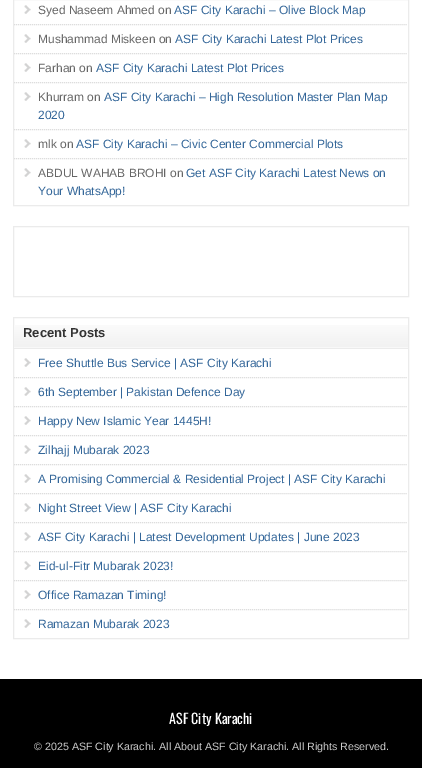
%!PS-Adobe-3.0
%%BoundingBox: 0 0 422 768
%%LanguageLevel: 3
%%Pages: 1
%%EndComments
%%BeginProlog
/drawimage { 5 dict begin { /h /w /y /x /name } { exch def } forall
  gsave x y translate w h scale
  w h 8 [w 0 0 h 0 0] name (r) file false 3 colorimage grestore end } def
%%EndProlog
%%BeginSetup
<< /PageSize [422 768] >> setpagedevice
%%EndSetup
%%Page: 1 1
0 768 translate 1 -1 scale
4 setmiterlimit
1 setgray
0 0 422 768 rectfill
0.922 setgray
13.5 -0.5 395 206 rectstroke
(images/1.raw) 24 5 7 9 drawimage
0.867 setgray
[1 1] 0 setdash
newpath 14 24.5 moveto 408 24.5 lineto stroke
(images/1.raw) 24 34 7 9 drawimage
newpath 14 53.5 moveto 408 53.5 lineto stroke
(images/1.raw) 24 63 7 9 drawimage
newpath 14 82.5 moveto 408 82.5 lineto stroke
(images/1.raw) 24 92 7 9 drawimage
newpath 14 129.5 moveto 408 129.5 lineto stroke
(images/1.raw) 24 139 7 9 drawimage
newpath 14 158.5 moveto 408 158.5 lineto stroke
(images/1.raw) 24 168 7 9 drawimage
0.922 setgray
[] 0 setdash
13.5 226.5 395 70 rectstroke
13.5 317.5 395 321 rectstroke
(images/2.raw) 14 325 394 23 drawimage
14 348 394 1 rectfill
(images/1.raw) 24 358 7 9 drawimage
0.867 setgray
[1 1] 0 setdash
newpath 14 377.5 moveto 408 377.5 lineto stroke
(images/1.raw) 24 387 7 9 drawimage
newpath 14 406.5 moveto 408 406.5 lineto stroke
(images/1.raw) 24 416 7 9 drawimage
newpath 14 435.5 moveto 408 435.5 lineto stroke
(images/1.raw) 24 445 7 9 drawimage
newpath 14 464.5 moveto 408 464.5 lineto stroke
(images/1.raw) 24 474 7 9 drawimage
newpath 14 493.5 moveto 408 493.5 lineto stroke
(images/1.raw) 24 503 7 9 drawimage
newpath 14 522.5 moveto 408 522.5 lineto stroke
(images/1.raw) 24 532 7 9 drawimage
newpath 14 551.5 moveto 408 551.5 lineto stroke
(images/1.raw) 24 561 7 9 drawimage
newpath 14 580.5 moveto 408 580.5 lineto stroke
(images/1.raw) 24 590 7 9 drawimage
newpath 14 609.5 moveto 408 609.5 lineto stroke
(images/1.raw) 24 619 7 9 drawimage
0 setgray
0 679 422 89 rectfill
/LiberationSans-Regular [12 0 0 -12 0 0] selectfont
0.4 setgray
38 14 moveto (Syed Naseem Ahmed on) show
0.2 0.4 0.6 setrgbcolor
174 14 moveto (ASF City Karachi – Olive Block Map) show
0.4 setgray
38 43 moveto (Mushammad Miskeen on) show
0.2 0.4 0.6 setrgbcolor
175 43 moveto (ASF City Karachi Latest Plot Prices) show
0.4 setgray
38 72 moveto (Farhan on) show
0.2 0.4 0.6 setrgbcolor
96 72 moveto (ASF City Karachi Latest Plot Prices) show
0.4 setgray
38 101 moveto (Khurram on) show
0.2 0.4 0.6 setrgbcolor
104 101 moveto (ASF City Karachi – High Resolution Master Plan Map) show
38 119 moveto (2020) show
0.4 setgray
38 148 moveto (mlk on) show
0.2 0.4 0.6 setrgbcolor
76 148 moveto (ASF City Karachi – Civic Center Commercial Plots) show
0.4 setgray
38 177 moveto (ABDUL WAHAB BROHI on) show
0.2 0.4 0.6 setrgbcolor
186 177 moveto (Get ASF City Karachi Latest News on) show
38 195 moveto (Your WhatsApp!) show
/LiberationSans-Bold [13 0 0 -13 0 0] selectfont
0.2 setgray
23 337 moveto (Recent Posts) show
/LiberationSans-Regular [12 0 0 -12 0 0] selectfont
0.2 0.4 0.6 setrgbcolor
38 367 moveto (Free Shuttle Bus Service | ASF City Karachi) show
38 396 moveto (6th September | Pakistan Defence Day) show
38 425 moveto (Happy New Islamic Year 1445H!) show
38 454 moveto (Zilhajj Mubarak 2023) show
38 483 moveto (A Promising Commercial & Residential Project | ASF City Karachi) show
38 512 moveto (Night Street View | ASF City Karachi) show
38 541 moveto (ASF City Karachi | Latest Development Updates | June 2023) show
38 570 moveto (Eid-ul-Fitr Mubarak 2023!) show
38 599 moveto (Office Ramazan Timing!) show
38 628 moveto (Ramazan Mubarak 2023) show
/Oswald-Regular [14 0 0 -14 0 0] selectfont
1 setgray
169 724 moveto (ASF City Karachi) show
/LiberationSans-Regular [10.7 0 0 -10.7 0 0] selectfont
0.8 setgray
34 750 moveto (© 2025 ASF City Karachi. All About ASF City Karachi. All Rights Reserved.) show
showpage
%%EOF
